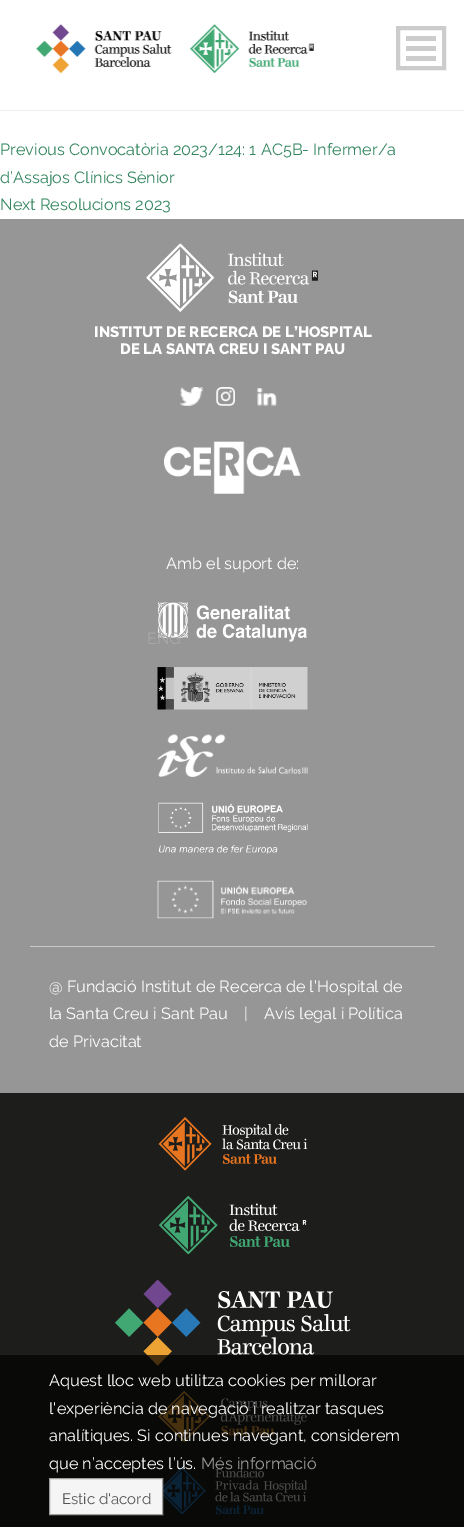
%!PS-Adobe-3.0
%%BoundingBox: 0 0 464 1527
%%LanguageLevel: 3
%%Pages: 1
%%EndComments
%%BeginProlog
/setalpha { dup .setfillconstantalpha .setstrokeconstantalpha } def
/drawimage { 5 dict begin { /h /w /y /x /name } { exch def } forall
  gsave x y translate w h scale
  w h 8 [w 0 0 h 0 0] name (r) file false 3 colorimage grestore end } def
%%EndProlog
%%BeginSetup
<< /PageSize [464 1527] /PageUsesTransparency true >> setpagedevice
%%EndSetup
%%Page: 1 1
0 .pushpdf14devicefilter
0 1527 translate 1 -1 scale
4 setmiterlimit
1 setgray
0 0 464 1527 rectfill
0.933 setgray
0 110 464 1 rectfill
0.588 setgray
0 219 464 874 rectfill
(images/1.raw) 146 243 172 69 drawimage
(images/2.raw) 180 387 24 19 drawimage
(images/3.raw) 216 387 19 19 drawimage
(images/4.raw) 257 388 20 18 drawimage
(images/5.raw) 164 441 137 53 drawimage
(images/6.raw) 157 602 150 40 drawimage
(images/7.raw) 157 667 151 43 drawimage
(images/8.raw) 157 734 151 43 drawimage
(images/9.raw) 158 802 150 52 drawimage
(images/10.raw) 157 880 150 39 drawimage
0.788 setgray
30 946 405 1 rectfill
0.114 0.114 0.106 setrgbcolor
0 1093 464 434 rectfill
(images/11.raw) 158 1117 150 54 drawimage
(images/12.raw) 158 1196 149 59 drawimage
(images/13.raw) 115 1280 236 86 drawimage
(images/14.raw) 158 1391 149 51 drawimage
(images/15.raw) 163 1467 145 48 drawimage
(images/16.raw) 35 24 279 50 drawimage
0.8 setgray
4 setlinewidth
398 28 46 40 rectstroke
406 56 30 5 rectfill
406 46 30 5 rectfill
406 36 30 5 rectfill
0.7 setalpha
0 setgray
0 1355 464 172 rectfill
1 setalpha
0.961 setgray
newpath 49.5 1478.5 moveto 162.5 1478.5 lineto 162.5 1514.5 lineto 49.5 1514.5 lineto closepath gsave fill grestore
0.62 setgray
1 setlinewidth
stroke
/Raleway-Regular [16.25 0 0 -16.25 0 0] selectfont
0.204 0.522 0.373 setrgbcolor
0 155 moveto (Previous Convocatòria 2023/124: 1 AC5B- Infermer/a) show
0 183 moveto (d’Assajos Clínics Sènior) show
0 210 moveto (Next Resolucions 2023) show
/Raleway-ExtraBold [15 0 0 -15 0 0] selectfont
1 setgray
94 337 moveto (INSTITUT DE RECERCA DE L’HOSPITAL) show
120 354 moveto (DE LA SANTA CREU I SANT PAU) show
/Raleway-Regular [16.25 0 0 -16.25 0 0] selectfont
166 569 moveto (Amb el suport de:) show
49 992 moveto (@ Fundació Institut de Recerca de l'Hospital de) show
49 1019 moveto (la Santa Creu i Sant Pau) show
244 1019 moveto (|) show
264 1019 moveto (Avís legal i Política) show
49 1047 moveto (de Privacitat) show
0.659 setgray
147 644 moveto (ENG) show
1 setgray
49 1386 moveto (Aquest lloc web utilitza cookies per millorar) show
49 1414 moveto (l'experiència de navegació i realitzar tasques) show
49 1441 moveto (analítiques. Si continues navegant, considerem) show
49 1469 moveto (que n’acceptes l’ús.) show
0.62 setgray
201 1469 moveto (Més informació) show
/Raleway-Regular [15 0 0 -15 0 0] selectfont
0.333 setgray
62 1504 moveto (Estic d'acord) show
.poppdf14devicefilter showpage
%%EOF
